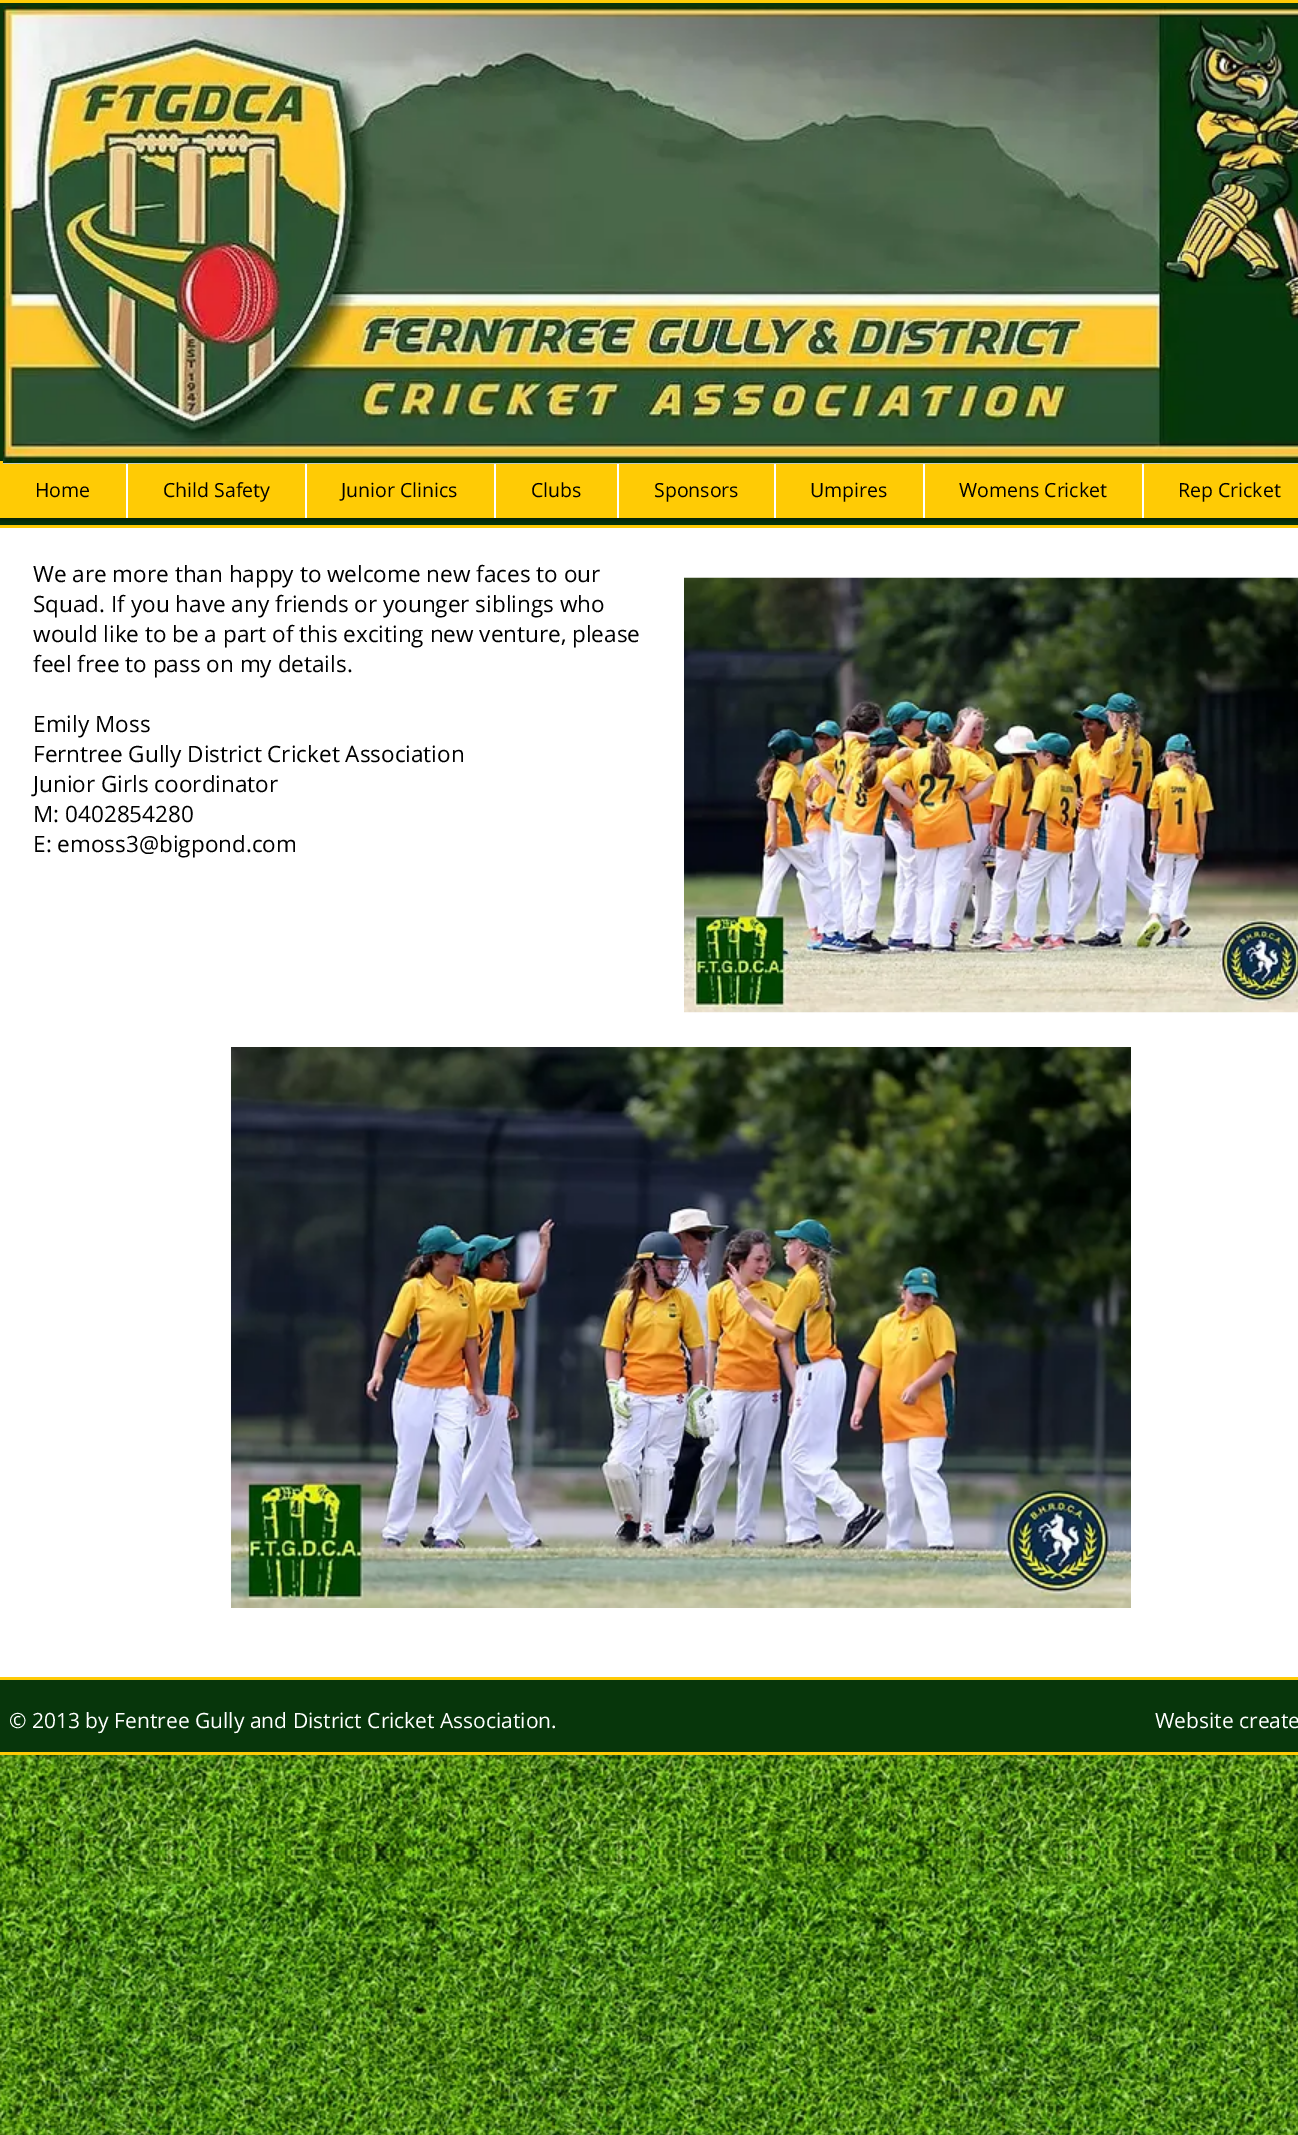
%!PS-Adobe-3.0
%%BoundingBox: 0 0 1298 2135
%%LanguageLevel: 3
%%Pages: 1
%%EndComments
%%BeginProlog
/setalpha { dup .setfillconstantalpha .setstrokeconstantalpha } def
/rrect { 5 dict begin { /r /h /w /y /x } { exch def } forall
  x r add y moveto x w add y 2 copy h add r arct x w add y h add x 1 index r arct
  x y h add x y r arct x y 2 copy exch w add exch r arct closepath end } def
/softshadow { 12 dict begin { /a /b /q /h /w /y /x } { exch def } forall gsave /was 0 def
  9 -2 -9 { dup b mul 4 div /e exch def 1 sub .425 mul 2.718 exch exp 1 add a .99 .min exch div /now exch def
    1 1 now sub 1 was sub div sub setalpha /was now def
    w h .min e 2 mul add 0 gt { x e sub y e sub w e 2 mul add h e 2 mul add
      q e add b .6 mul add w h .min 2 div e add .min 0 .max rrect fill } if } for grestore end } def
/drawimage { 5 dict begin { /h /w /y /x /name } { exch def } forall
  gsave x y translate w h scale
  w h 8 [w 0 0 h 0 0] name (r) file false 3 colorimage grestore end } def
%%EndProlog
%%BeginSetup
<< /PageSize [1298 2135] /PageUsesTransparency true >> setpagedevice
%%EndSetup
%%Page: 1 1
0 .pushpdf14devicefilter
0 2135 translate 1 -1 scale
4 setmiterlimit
1 setgray
0 0 1298 2135 rectfill
0.027 0.208 0.043 setrgbcolor
0 3 1298 522 rectfill
1 0.796 0.02 setrgbcolor
0 0 1298 3 rectfill
0 525 1298 3 rectfill
0 setgray
0 462 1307 57 0 3 0.6 softshadow
1 0.796 0.02 setrgbcolor
0 461 1298 57 rectfill
1 setgray
126 461 2 57 rectfill
305 461 2 57 rectfill
494 461 2 57 rectfill
617 461 2 57 rectfill
774 461 2 57 rectfill
923 461 2 57 rectfill
1142 461 2 57 rectfill
3 463 1295 1 rectfill
(images/1.raw) 3 6 1295 458 drawimage
(images/2.raw) 684 577 614 436 drawimage
(images/3.raw) 231 1047 900 561 drawimage
0.027 0.212 0.043 setrgbcolor
0 1680 1298 72 rectfill
1 0.796 0.02 setrgbcolor
0 1677 1298 3 rectfill
0 1752 1298 3 rectfill
(images/4.raw) 0 1755 1298 380 drawimage
/OpenSans-Regular [19.5 0 0 -19.5 0 0] selectfont
0 setgray
35 497 moveto (Home) show
163 497 moveto (Child Safety) show
341 497 moveto (Junior Clinics) show
531 497 moveto (Clubs) show
654 497 moveto (Sponsors) show
810 497 moveto (Umpires) show
959 497 moveto (Womens Cricket) show
1178 497 moveto (Rep Cricket) show
/OpenSans-Regular [22.5 0 0 -22.5 0 0] selectfont
33 582 moveto (We are more than happy to welcome new faces to our) show
33 612 moveto (Squad. If you have any friends or younger siblings who) show
33 642 moveto (would like to be a part of this exciting new venture, please) show
33 672 moveto (feel free to pass on my details.) show
33 732 moveto (Emily Moss) show
33 762 moveto (Ferntree Gully District Cricket Association) show
33 792 moveto (Junior Girls coordinator) show
33 822 moveto (M: 0402854280) show
33 852 moveto (E: emoss3@bigpond.com) show
/OpenSans-Regular [21 0 0 -21 0 0] selectfont
1 setgray
9 1728 moveto (© 2013 by Fentree Gully and District Cricket Association.) show
1155 1728 moveto (Website create) show
.poppdf14devicefilter showpage
%%EOF
